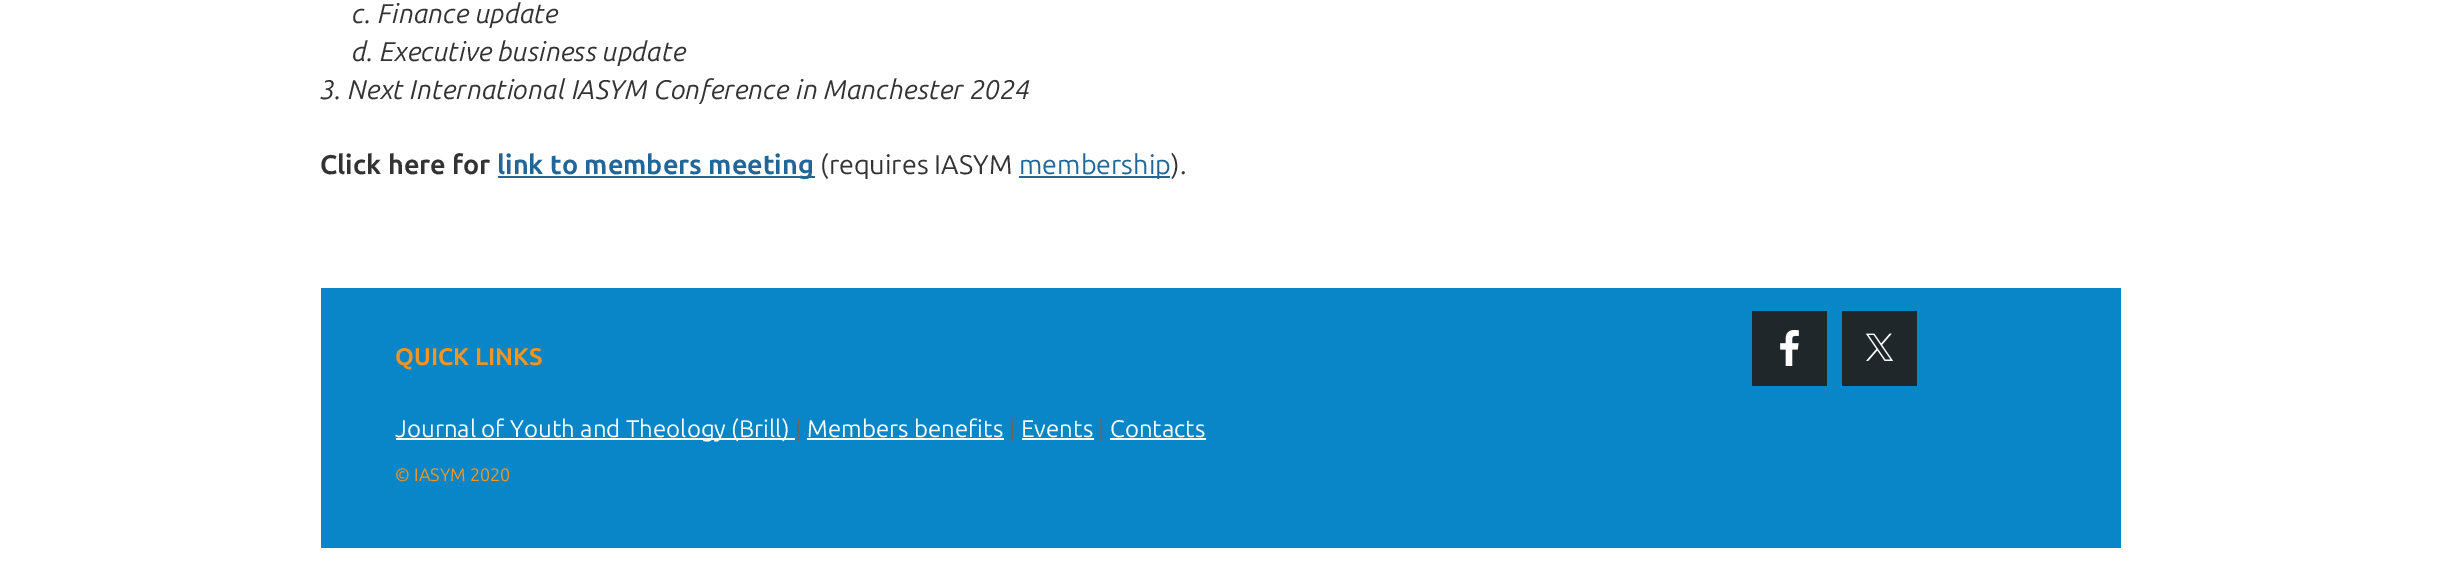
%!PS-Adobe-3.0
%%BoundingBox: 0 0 2440 575
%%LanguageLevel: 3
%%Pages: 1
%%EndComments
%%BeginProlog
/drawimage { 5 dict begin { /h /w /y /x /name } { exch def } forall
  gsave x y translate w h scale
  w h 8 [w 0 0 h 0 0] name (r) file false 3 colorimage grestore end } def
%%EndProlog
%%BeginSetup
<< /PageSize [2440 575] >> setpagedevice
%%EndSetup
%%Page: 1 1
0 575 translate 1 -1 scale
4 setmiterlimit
1 setgray
0 0 2440 575 rectfill
0.125 0.4 0.6 setrgbcolor
498 176 317 2 rectfill
1019 176 151 2 rectfill
0.035 0.525 0.78 setrgbcolor
321 288 1800 260 rectfill
1 setgray
396 438 399 2 rectfill
807 438 197 2 rectfill
1022 438 72 2 rectfill
1110 438 96 2 rectfill
0.122 0.153 0.169 setrgbcolor
1752 311 75 75 rectfill
(images/1.raw) 1780 330 19 36 drawimage
1842 311 75 75 rectfill
(images/2.raw) 1865 333 29 28 drawimage
/Ubuntu-Italic [27 0 0 -27 0 0] selectfont
0.2 setgray
352 23 moveto (c. Finance update) show
352 61 moveto (d. Executive business update) show
320 99 moveto (3. Next International IASYM Conference in Manchester 2024) show
/Ubuntu-Bold [27 0 0 -27 0 0] selectfont
320 174 moveto (Click here for) show
0.125 0.4 0.6 setrgbcolor
497 174 moveto (link to members meeting) show
/Ubuntu-Regular [27 0 0 -27 0 0] selectfont
0.2 setgray
820 174 moveto (\(requires IASYM) show
0.125 0.4 0.6 setrgbcolor
1019 174 moveto (membership) show
0.2 setgray
1171 174 moveto (\).) show
/Ubuntu-Bold [24 0 0 -24 0 0] selectfont
0.969 0.58 0.114 setrgbcolor
395 365 moveto (QUICK LINKS) show
/Ubuntu-Regular [24 0 0 -24 0 0] selectfont
1 setgray
395 437 moveto (Journal of Youth and Theology \(Brill\)) show
0.4 setgray
795 437 moveto (|) show
1 setgray
807 437 moveto (Members benefits) show
0.4 setgray
1009 437 moveto (|) show
1 setgray
1021 437 moveto (Events) show
0.4 setgray
1098 437 moveto (|) show
1 setgray
1110 437 moveto (Contacts) show
/Ubuntu-Regular [18 0 0 -18 0 0] selectfont
0.969 0.58 0.114 setrgbcolor
395 481 moveto (© IASYM 2020) show
showpage
%%EOF
